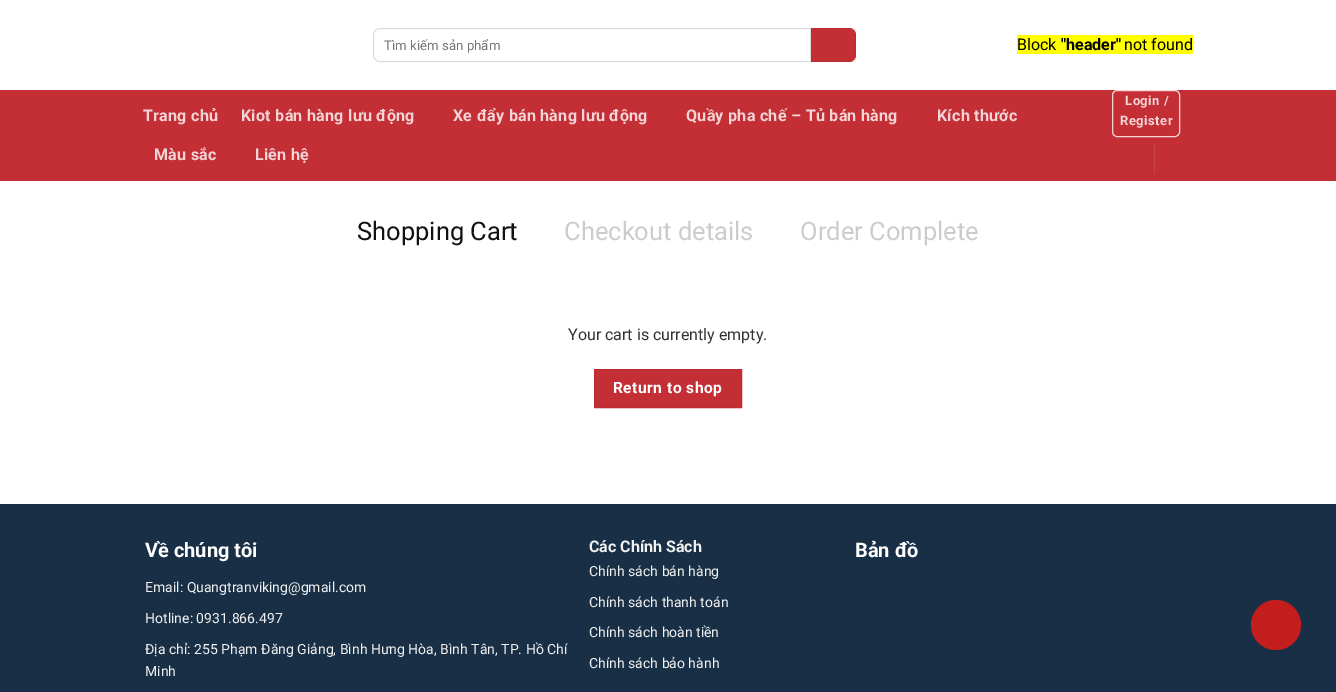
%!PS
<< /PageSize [1336 692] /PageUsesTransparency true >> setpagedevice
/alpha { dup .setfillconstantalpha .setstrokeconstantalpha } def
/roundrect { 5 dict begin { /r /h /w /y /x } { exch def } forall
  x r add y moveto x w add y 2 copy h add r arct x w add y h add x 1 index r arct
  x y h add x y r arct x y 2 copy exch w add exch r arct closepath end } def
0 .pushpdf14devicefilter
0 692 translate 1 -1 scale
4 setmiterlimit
1 setgray
0 0 1336 692 rectfill
0.867 setgray
newpath 380 28.5 moveto 810.5 28.5 lineto 810.5 61.5 lineto 380 61.5 lineto 376.5 61.5 373.5 58.5 373.5 55 curveto 373.5 35 lineto 373.5 31.5 376.5 28.5 380 28.5 curveto closepath stroke
/Roboto-Regular [13.25 0 0 -13.25 0 0] selectfont
0.459 setgray
384 50 moveto (Tìm kiếm sản phẩm) show
0.769 0.184 0.208 setrgbcolor
newpath 811 28 moveto 849 28 lineto 853 28 856 31 856 35 curveto 856 55 lineto 856 59 853 62 849 62 curveto 811 62 lineto closepath fill
0.05 alpha
0 setgray
811.5 28.5 44 33 rectstroke
1 alpha
1 1 0 setrgbcolor
1017 35 176 19 rectfill
/Roboto-Regular [16 0 0 -16 0 0] selectfont
0 setgray
1017 50 moveto (Block) show
/Roboto-Bold [16 0 0 -16 0 0] selectfont
1061 50 moveto ("header") show
/Roboto-Regular [16 0 0 -16 0 0] selectfont
1124 50 moveto (not found) show
0.769 0.184 0.208 setrgbcolor
0 90 1336 91 rectfill
/Roboto-Bold [16 0 0 -16 0 0] selectfont
0.953 0.835 0.843 setrgbcolor
143 121 moveto 0.3 0 (Trang chủ) ashow
241 121 moveto 0.3 0 (Kiot bán hàng lưu động) ashow
453 121 moveto 0.3 0 (Xe đẩy bán hàng lưu động) ashow
686 121 moveto 0.3 0 (Quầy pha chế – Tủ bán hàng) ashow
937 121 moveto 0.3 0 (Kích thước) ashow
154 160 moveto 0.3 0 (Màu sắc) ashow
255 160 moveto 0.3 0 (Liên hệ) ashow
1112.5 90.5 67 46 4.5 roundrect stroke
/Roboto-Bold [13 0 0 -13 0 0] selectfont
1125 105 moveto 0.5 0 (Login /) ashow
1120 125 moveto 0.5 0 (Register) ashow
0.792 0.267 0.286 setrgbcolor
1154 144 1 30 rectfill
/Roboto-Regular [25.5 0 0 -25.5 0 0] selectfont
0.067 setgray
357 240 moveto (Shopping Cart) show
0.8 setgray
564 240 moveto (Checkout details) show
800 240 moveto (Order Complete) show
/Roboto-Regular [16 0 0 -16 0 0] selectfont
0.2 setgray
568 340 moveto (Your cart is currently empty.) show
0.769 0.184 0.208 setrgbcolor
newpath 594.5 369.5 moveto 741.5 369.5 lineto 741.5 407.5 lineto 594.5 407.5 lineto closepath gsave fill grestore
0.729 0.176 0.196 setrgbcolor
stroke
/Roboto-Bold [15.5 0 0 -15.5 0 0] selectfont
1 setgray
613 393 moveto 0.5 0 (Return to shop) ashow
0.094 0.184 0.271 setrgbcolor
0 504 1336 188 rectfill
/Roboto-Bold [20 0 0 -20 0 0] selectfont
1 setgray
145 557 moveto (Về chúng tôi) show
/Roboto-Regular [14 0 0 -14 0 0] selectfont
0.945 setgray
145 592 moveto (Email: Quangtranviking@gmail.com) show
145 623 moveto (Hotline: 0931.866.497) show
145 654 moveto (Địa chỉ: 255 Phạm Đăng Giảng, Bình Hưng Hòa, Bình Tân, TP. Hồ Chí) show
145 676 moveto (Minh) show
/Roboto-Bold [16 0 0 -16 0 0] selectfont
589 552 moveto (Các Chính Sách) show
/Roboto-Regular [14 0 0 -14 0 0] selectfont
589 576 moveto (Chính sách bán hàng) show
589 607 moveto (Chính sách thanh toán) show
589 637 moveto (Chính sách hoàn tiền) show
589 668 moveto (Chính sách bảo hành) show
/Roboto-Bold [20 0 0 -20 0 0] selectfont
1 setgray
855 557 moveto (Bản đồ) show
0.765 0.114 0.114 setrgbcolor
newpath 1276 625 25 0 360 arc closepath fill
.poppdf14devicefilter showpage
